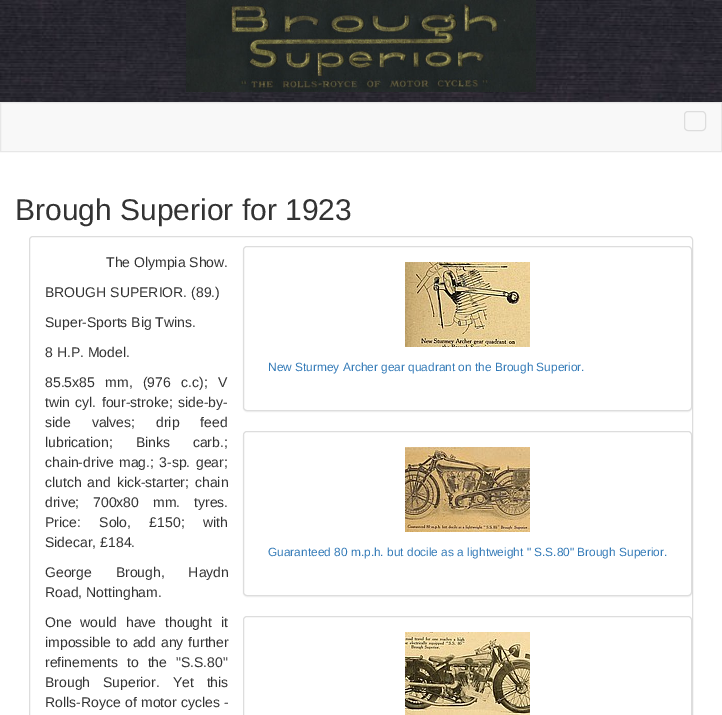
%!PS
<< /PageSize [722 715] /PageUsesTransparency true >> setpagedevice
/alpha { dup .setfillconstantalpha .setstrokeconstantalpha } def
/roundrect { 5 dict begin { /r /h /w /y /x } { exch def } forall
  x r add y moveto x w add y 2 copy h add r arct x w add y h add x 1 index r arct
  x y h add x y r arct x y 2 copy exch w add exch r arct closepath end } def
/shadow { 12 dict begin { /a /b /q /h /w /y /x } { exch def } forall gsave /was 0 def
  9 -2 -9 { dup b mul 4 div /e exch def 1 sub .425 mul 2.718 exch exp 1 add a .99 .min exch div /now exch def
    1 1 now sub 1 was sub div sub alpha /was now def
    w h .min e 2 mul add 0 gt { x e sub y e sub w e 2 mul add h e 2 mul add
      q e add b .6 mul add w h .min 2 div e add .min 0 .max roundrect fill } if } for grestore end } def
/picture { 5 dict begin { /h /w /y /x /name } { exch def } forall
  gsave x y translate w h scale
  w h 8 [w 0 0 h 0 0] name (r) file false 3 colorimage grestore end } def
0 .pushpdf14devicefilter
0 715 translate 1 -1 scale
4 setmiterlimit
1 setgray
0 0 722 715 rectfill
(img1.rgb) 0 0 722 102 picture
(img2.rgb) 186 0 350 92 picture
0.973 setgray
newpath 0.5 102.5 moveto 721.5 102.5 lineto 721.5 151.5 lineto 0.5 151.5 lineto closepath gsave fill grestore
0.906 setgray
stroke
0.867 setgray
684.5 111.5 21 19 3.5 roundrect stroke
/LiberationSans-Regular [30 0 0 -30 0 0] selectfont
0.2 setgray
15 220 moveto (Brough Superior for 1923) show
0.867 setgray
29.5 236.5 663 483 3.5 roundrect stroke
/LiberationSans-Regular [14 0 0 -14 0 0] selectfont
0.2 setgray
106 267 moveto (The Olympia Show.) show
45 297 moveto (BROUGH SUPERIOR. \(89.\)) show
45 327 moveto (Super-Sports Big Twins.) show
45 357 moveto (8 H.P. Model.) show
45 387 moveto 6.5 0 32 (85.5x85 mm, \(976 c.c\); V) widthshow
45 407 moveto 1.5 0 32 (twin cyl. four-stroke; side-by-) widthshow
45 427 moveto 17 0 32 (side valves; drip feed) widthshow
45 447 moveto 19 0 32 (lubrication; Binks carb.;) widthshow
45 467 moveto 1.5 0 32 (chain-drive mag.; 3-sp. gear;) widthshow
45 487 moveto 2 0 32 (clutch and kick-starter; chain) widthshow
45 507 moveto 10 0 32 (drive; 700x80 mm. tyres.) widthshow
45 527 moveto 14.5 0 32 (Price: Solo, £150; with) widthshow
45 547 moveto (Sidecar, £184.) show
45 577 moveto 20 0 32 (George Brough, Haydn) widthshow
45 597 moveto (Road, Nottingham.) show
45 627 moveto 5 0 32 (One would have thought it) widthshow
45 647 moveto 1 0 32 (impossible to add any further) widthshow
45 667 moveto 5 0 32 (refinements to the "S.S.80") widthshow
45 687 moveto 9 0 32 (Brough Superior. Yet this) widthshow
45 707 moveto 0.5 0 32 (Rolls-Royce of motor cycles -) widthshow
0 setgray
243 247 449 165 4 0.5 0.05 shadow
1 setgray
243.5 246.5 448 164 3.5 roundrect gsave fill grestore
0.867 setgray
stroke
(img3.rgb) 405 262 125 85 picture
/LiberationSans-Regular [11.9 0 0 -11.9 0 0] selectfont
0.2 0.478 0.718 setrgbcolor
268 371 moveto (New Sturmey Archer gear quadrant on the Brough Superior.) show
0 setgray
243 432 449 165 4 0.5 0.05 shadow
1 setgray
243.5 431.5 448 164 3.5 roundrect gsave fill grestore
0.867 setgray
stroke
(img4.rgb) 405 447 125 85 picture
0.2 0.478 0.718 setrgbcolor
268 556 moveto (Guaranteed 80 m.p.h. but docile as a lightweight " S.S.80" Brough Superior.) show
0.867 setgray
243.5 616.5 448 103 3.5 roundrect stroke
(img5.rgb) 405 632 125 83 picture
.poppdf14devicefilter showpage
